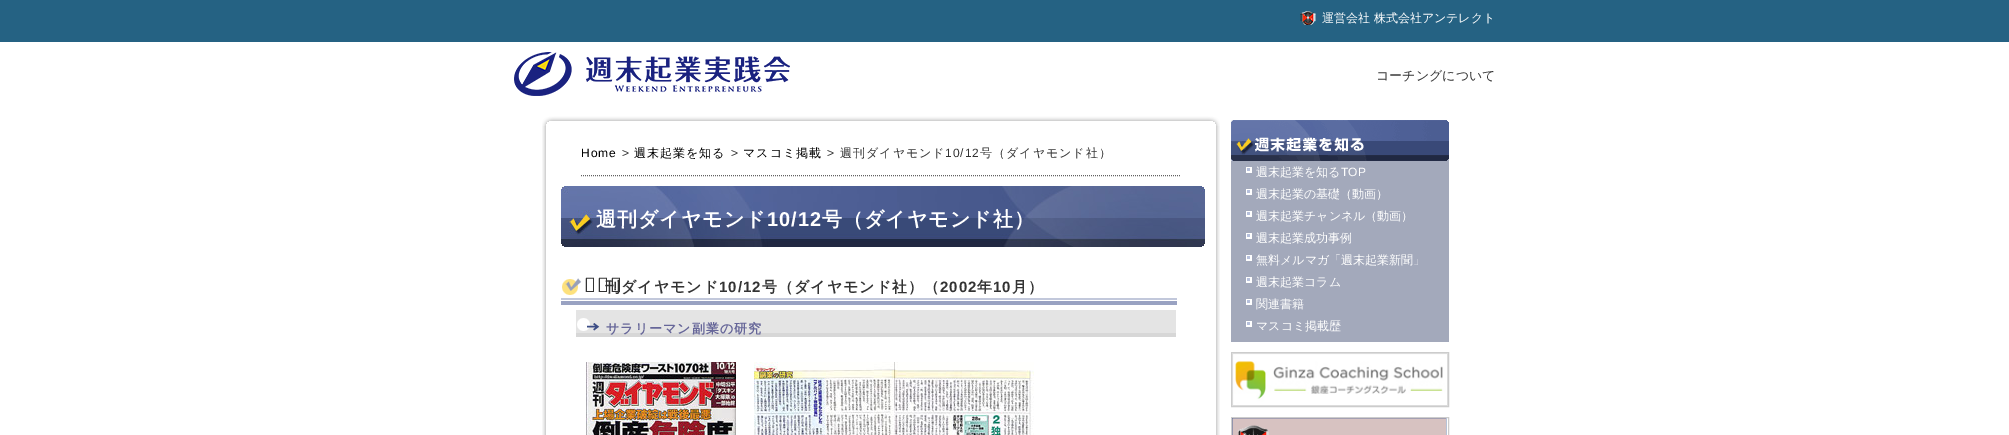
%!PS
<< /PageSize [2009 435] >> setpagedevice
/picture { 5 dict begin { /h /w /y /x /name } { exch def } forall
  gsave x y translate w h scale
  w h 8 [w 0 0 h 0 0] name (r) file false 3 colorimage grestore end } def
0 435 translate 1 -1 scale
4 setmiterlimit
1 setgray
0 0 2009 435 rectfill
0.145 0.384 0.514 setrgbcolor
0 0 2009 42 rectfill
(img1.rgb) 1300 11 16 14 picture
/WenQuanYiZenHei-Medium [12 0 0 -12 0 0] selectfont
1 setgray
1322 22 moveto (運営会社 株式会社アンテレクト) show
(img2.rgb) 514 52 276 44 picture
/WenQuanYiZenHei-Medium [13 0 0 -13 0 0] selectfont
0.2 setgray
1376 80 moveto (コーチングについて) show
(img3.rgb) 542 126 678 309 picture
(img4.rgb) 542 110 678 16 picture
0.38 setgray
[1 1] 0 setdash
newpath 581 175.5 moveto 1181 175.5 lineto stroke
/LiberationSans-Regular [12 0 0 -12 0 0] selectfont
0 setgray
581 157 moveto 1 0 (Home) ashow
0.2 setgray
622 157 moveto 1 0 (>) ashow
/WenQuanYiZenHei-Medium [12 0 0 -12 0 0] selectfont
0 setgray
634 157 moveto 1 0 (週末起業を知る) ashow
/LiberationSans-Regular [12 0 0 -12 0 0] selectfont
0.2 setgray
731 157 moveto 1 0 (>) ashow
/WenQuanYiZenHei-Medium [12 0 0 -12 0 0] selectfont
0 setgray
743 157 moveto 1 0 (マスコミ掲載) ashow
/LiberationSans-Regular [12 0 0 -12 0 0] selectfont
0.2 setgray
827 157 moveto 1 0 (>) ashow
/WenQuanYiZenHei-Medium [12 0 0 -12 0 0] selectfont
840 157 moveto 1 0 (週刊ダイヤモンド) ashow
/LiberationSans-Regular [12 0 0 -12 0 0] selectfont
945 157 moveto 1 0 (10/12) ashow
/WenQuanYiZenHei-Medium [12 0 0 -12 0 0] selectfont
980 157 moveto 1 0 (号（ダイヤモンド社）) ashow
(img5.rgb) 561 186 644 61 picture
/WenQuanYiZenHei-Bold [20 0 0 -20 0 0] selectfont
1 setgray
596 226 moveto 1 0 (週刊ダイヤモンド) ashow
/LiberationSans-Bold [20 0 0 -20 0 0] selectfont
767 226 moveto 1 0 (10/12) ashow
/WenQuanYiZenHei-Bold [20 0 0 -20 0 0] selectfont
822 226 moveto 1 0 (号（ダイヤモンド社）) ashow
(img6.rgb) 561 278 616 27 picture
/NotoSans-Thin [20 0 0 -20 0 0] selectfont
0.2 setgray
584 292 moveto 1 0 (週) ashow
/WenQuanYiZenHei-Bold [15 0 0 -15 0 0] selectfont
605 292 moveto 1 0 (刊ダイヤモンド) ashow
/LiberationSans-Bold [15 0 0 -15 0 0] selectfont
719 292 moveto 1 0 (10/12) ashow
/WenQuanYiZenHei-Bold [15 0 0 -15 0 0] selectfont
762 292 moveto 1 0 (号（ダイヤモンド社）（) ashow
/LiberationSans-Bold [15 0 0 -15 0 0] selectfont
940 292 moveto 1 0 (2002) ashow
/WenQuanYiZenHei-Bold [15 0 0 -15 0 0] selectfont
977 292 moveto 1 0 (年) ashow
/LiberationSans-Bold [15 0 0 -15 0 0] selectfont
993 292 moveto 1 0 (10) ashow
/WenQuanYiZenHei-Bold [15 0 0 -15 0 0] selectfont
1012 292 moveto 1 0 (月）) ashow
(img7.rgb) 576 310 600 27 picture
/WenQuanYiZenHei-Bold [13 0 0 -13 0 0] selectfont
0.4 0.4 0.6 setrgbcolor
606 333 moveto 1 0 (サラリーマン副業の研究) ashow
(img8.rgb) 586 362 150 73 picture
(img9.rgb) 754 362 280 73 picture
0.639 0.663 0.733 setrgbcolor
1231 159 218 183 rectfill
(img10.rgb) 1231 120 218 41 picture
(img11.rgb) 1246 167 6 6 picture
/WenQuanYiZenHei-Medium [12 0 0 -12 0 0] selectfont
1 setgray
1256 176 moveto (週末起業を知る) show
/LiberationSans-Regular [12 0 0 -12 0 0] selectfont
1341 176 moveto (TOP) show
(img11.rgb) 1246 189 6 6 picture
/WenQuanYiZenHei-Medium [12 0 0 -12 0 0] selectfont
1256 198 moveto (週末起業の基礎（動画）) show
(img11.rgb) 1246 211 6 6 picture
1256 220 moveto (週末起業チャンネル（動画）) show
(img11.rgb) 1246 233 6 6 picture
1256 242 moveto (週末起業成功事例) show
(img11.rgb) 1246 255 6 6 picture
1256 264 moveto (無料メルマガ「週末起業新聞」) show
(img11.rgb) 1246 277 6 6 picture
1256 286 moveto (週末起業コラム) show
(img11.rgb) 1246 299 6 6 picture
1256 308 moveto (関連書籍) show
(img11.rgb) 1246 321 6 6 picture
1256 330 moveto (マスコミ掲載歴) show
0.8 setgray
[] 0 setdash
1231.5 352.5 217 54 rectstroke
(img12.rgb) 1232 353 216 53 picture
1231.5 417.5 217 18 rectstroke
(img13.rgb) 1232 418 215 17 picture
showpage
